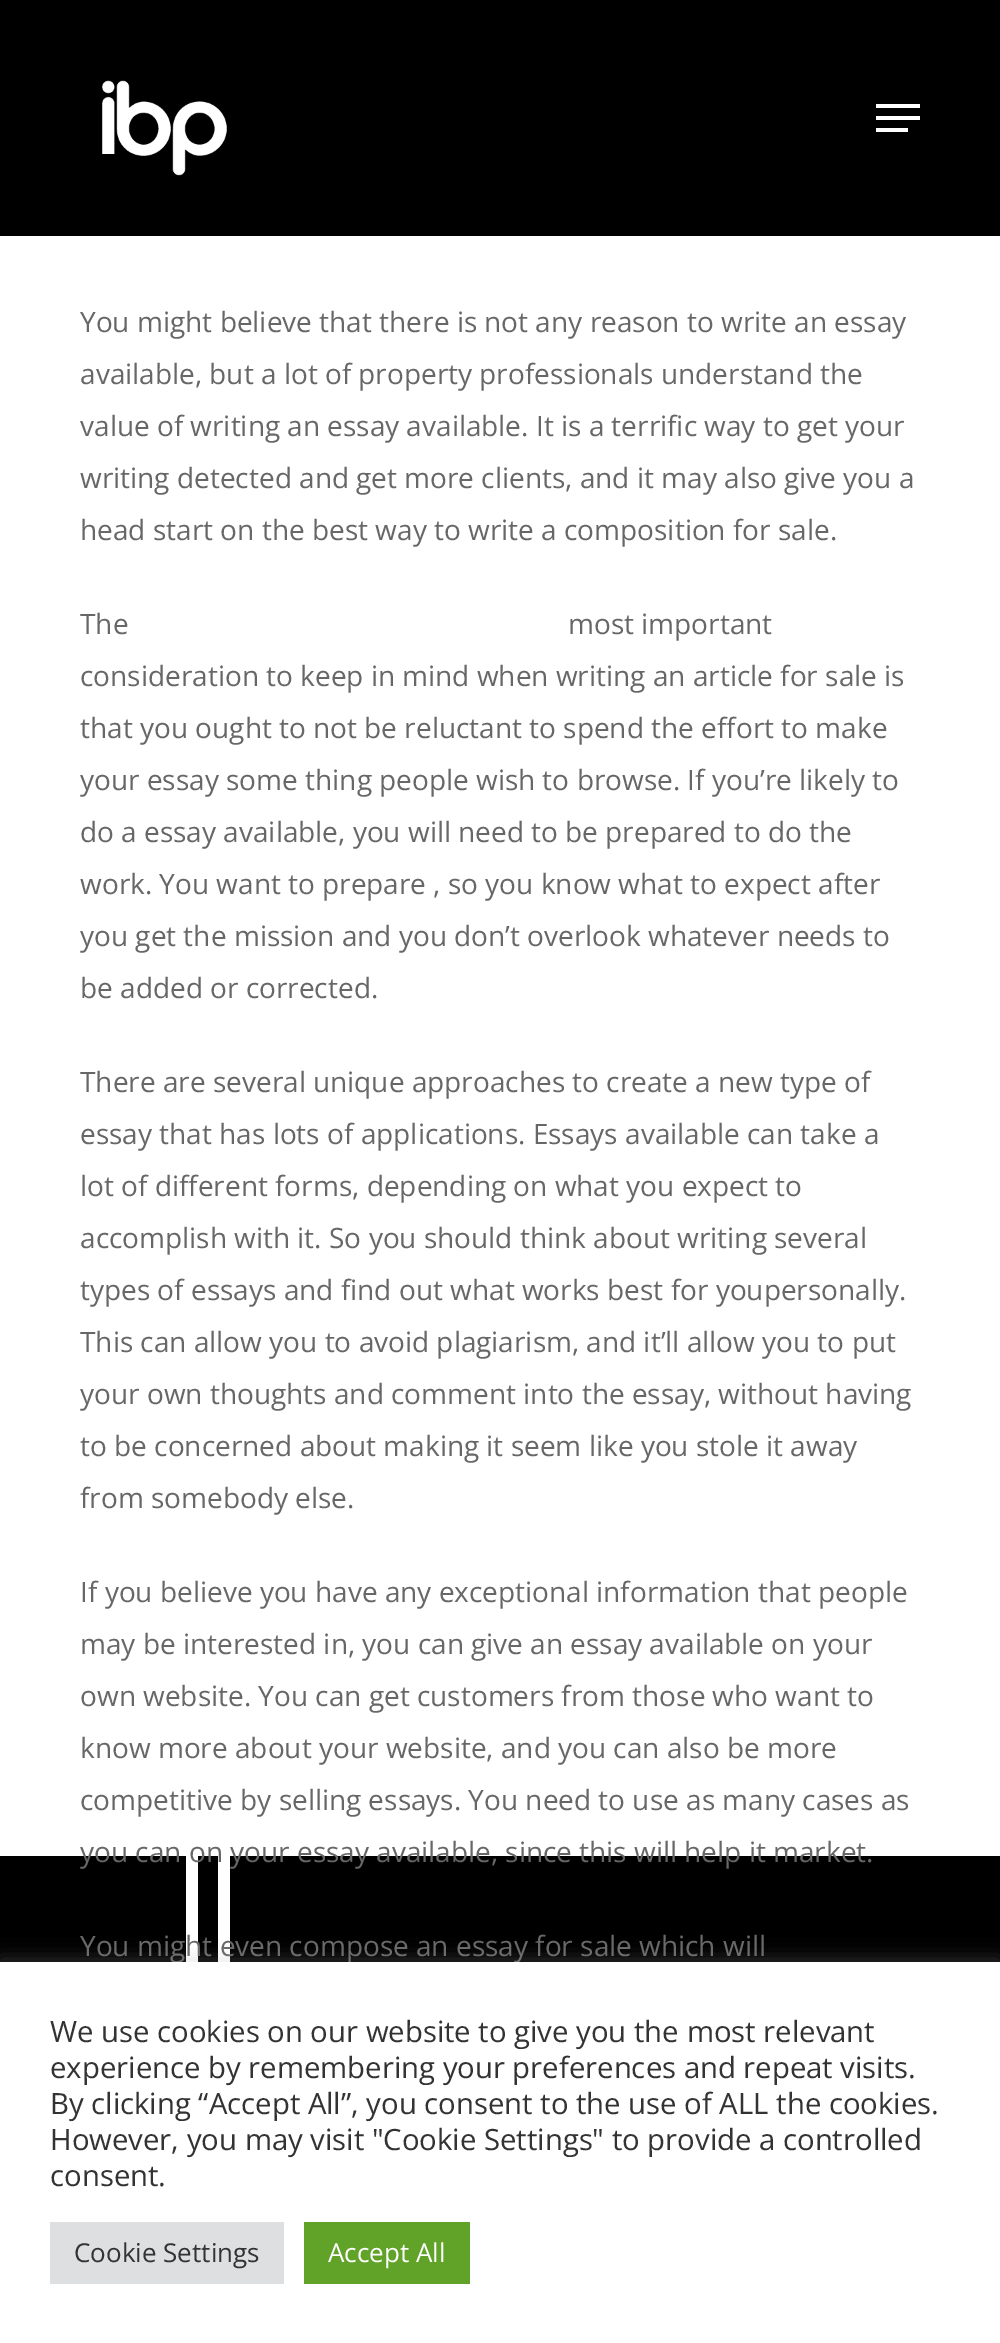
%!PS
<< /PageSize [1000 2343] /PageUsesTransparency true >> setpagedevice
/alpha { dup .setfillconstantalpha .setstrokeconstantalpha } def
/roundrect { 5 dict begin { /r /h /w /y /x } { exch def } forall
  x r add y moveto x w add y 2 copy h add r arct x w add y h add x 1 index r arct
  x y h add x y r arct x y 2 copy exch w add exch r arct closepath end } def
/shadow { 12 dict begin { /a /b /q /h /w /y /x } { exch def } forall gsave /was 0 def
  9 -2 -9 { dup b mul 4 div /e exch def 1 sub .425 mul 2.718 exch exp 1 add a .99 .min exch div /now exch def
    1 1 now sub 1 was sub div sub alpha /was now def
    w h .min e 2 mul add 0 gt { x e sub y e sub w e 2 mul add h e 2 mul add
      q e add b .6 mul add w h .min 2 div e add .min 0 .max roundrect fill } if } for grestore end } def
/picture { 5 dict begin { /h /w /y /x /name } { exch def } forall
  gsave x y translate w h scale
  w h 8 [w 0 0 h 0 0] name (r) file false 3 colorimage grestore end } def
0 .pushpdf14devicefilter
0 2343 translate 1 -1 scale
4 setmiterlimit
1 setgray
0 0 1000 2343 rectfill
0 setgray
0 0 1000 236 rectfill
(img1.rgb) 102 80 125 96 picture
1 setgray
876 104 44 4 rectfill
876 128 32 4 rectfill
876 116 44 4 rectfill
/OpenSans-Regular [28 0 0 -28 0 0] selectfont
0.404 setgray
80 332 moveto (You might believe that there is not any reason to write an essay) show
80 384 moveto (available, but a lot of property professionals understand the) show
80 436 moveto (value of writing an essay available. It is a terrific way to get your) show
80 488 moveto (writing detected and get more clients, and it may also give you a) show
80 540 moveto (head start on the best way to write a composition for sale.) show
80 634 moveto (The) show
568 634 moveto (most important) show
80 686 moveto (consideration to keep in mind when writing an article for sale is) show
80 738 moveto (that you ought to not be reluctant to spend the effort to make) show
80 790 moveto (your essay some thing people wish to browse. If you’re likely to) show
80 842 moveto (do a essay available, you will need to be prepared to do the) show
80 894 moveto (work. You want to prepare , so you know what to expect after) show
80 946 moveto (you get the mission and you don’t overlook whatever needs to) show
80 998 moveto (be added or corrected.) show
80 1092 moveto (There are several unique approaches to create a new type of) show
80 1144 moveto (essay that has lots of applications. Essays available can take a) show
80 1196 moveto (lot of different forms, depending on what you expect to) show
80 1248 moveto (accomplish with it. So you should think about writing several) show
80 1300 moveto (types of essays and find out what works best for youpersonally.) show
80 1352 moveto (This can allow you to avoid plagiarism, and it’ll allow you to put) show
80 1404 moveto (your own thoughts and comment into the essay, without having) show
80 1456 moveto (to be concerned about making it seem like you stole it away) show
80 1508 moveto (from somebody else.) show
80 1602 moveto (If you believe you have any exceptional information that people) show
80 1654 moveto (may be interested in, you can give an essay available on your) show
80 1706 moveto (own website. You can get customers from those who want to) show
80 1758 moveto (know more about your website, and you can also be more) show
80 1810 moveto (competitive by selling essays. You need to use as many cases as) show
0 setgray
0 1856 1000 106 rectfill
1 setgray
186 1856 12 106 rectfill
218 1856 12 106 rectfill
0.404 setgray
80 1862 moveto (you can on your essay available, since this will help it market.) show
80 1956 moveto (You might even compose an essay for sale which will) show
0.675 0.671 0.671 setrgbcolor
0 1960 1000 382 0 10 0.3 shadow
1 setgray
0 1962 1000 381 rectfill
/OpenSans-Regular [29.3 0 0 -29.3 0 0] selectfont
0.2 setgray
50 2042 moveto (We use cookies on our website to give you the most relevant) show
50 2078 moveto (experience by remembering your preferences and repeat visits.) show
50 2114 moveto (By clicking “Accept All”, you consent to the use of ALL the cookies.) show
50 2150 moveto (However, you may visit "Cookie Settings" to provide a controlled) show
50 2186 moveto (consent.) show
0.871 0.875 0.878 setrgbcolor
50 2222 234 62 rectfill
/OpenSans-Regular [26 0 0 -26 0 0] selectfont
0.2 setgray
74 2262 moveto (Cookie Settings) show
0.38 0.635 0.161 setrgbcolor
304 2222 166 62 rectfill
1 setgray
328 2262 moveto (Accept All) show
.poppdf14devicefilter showpage
